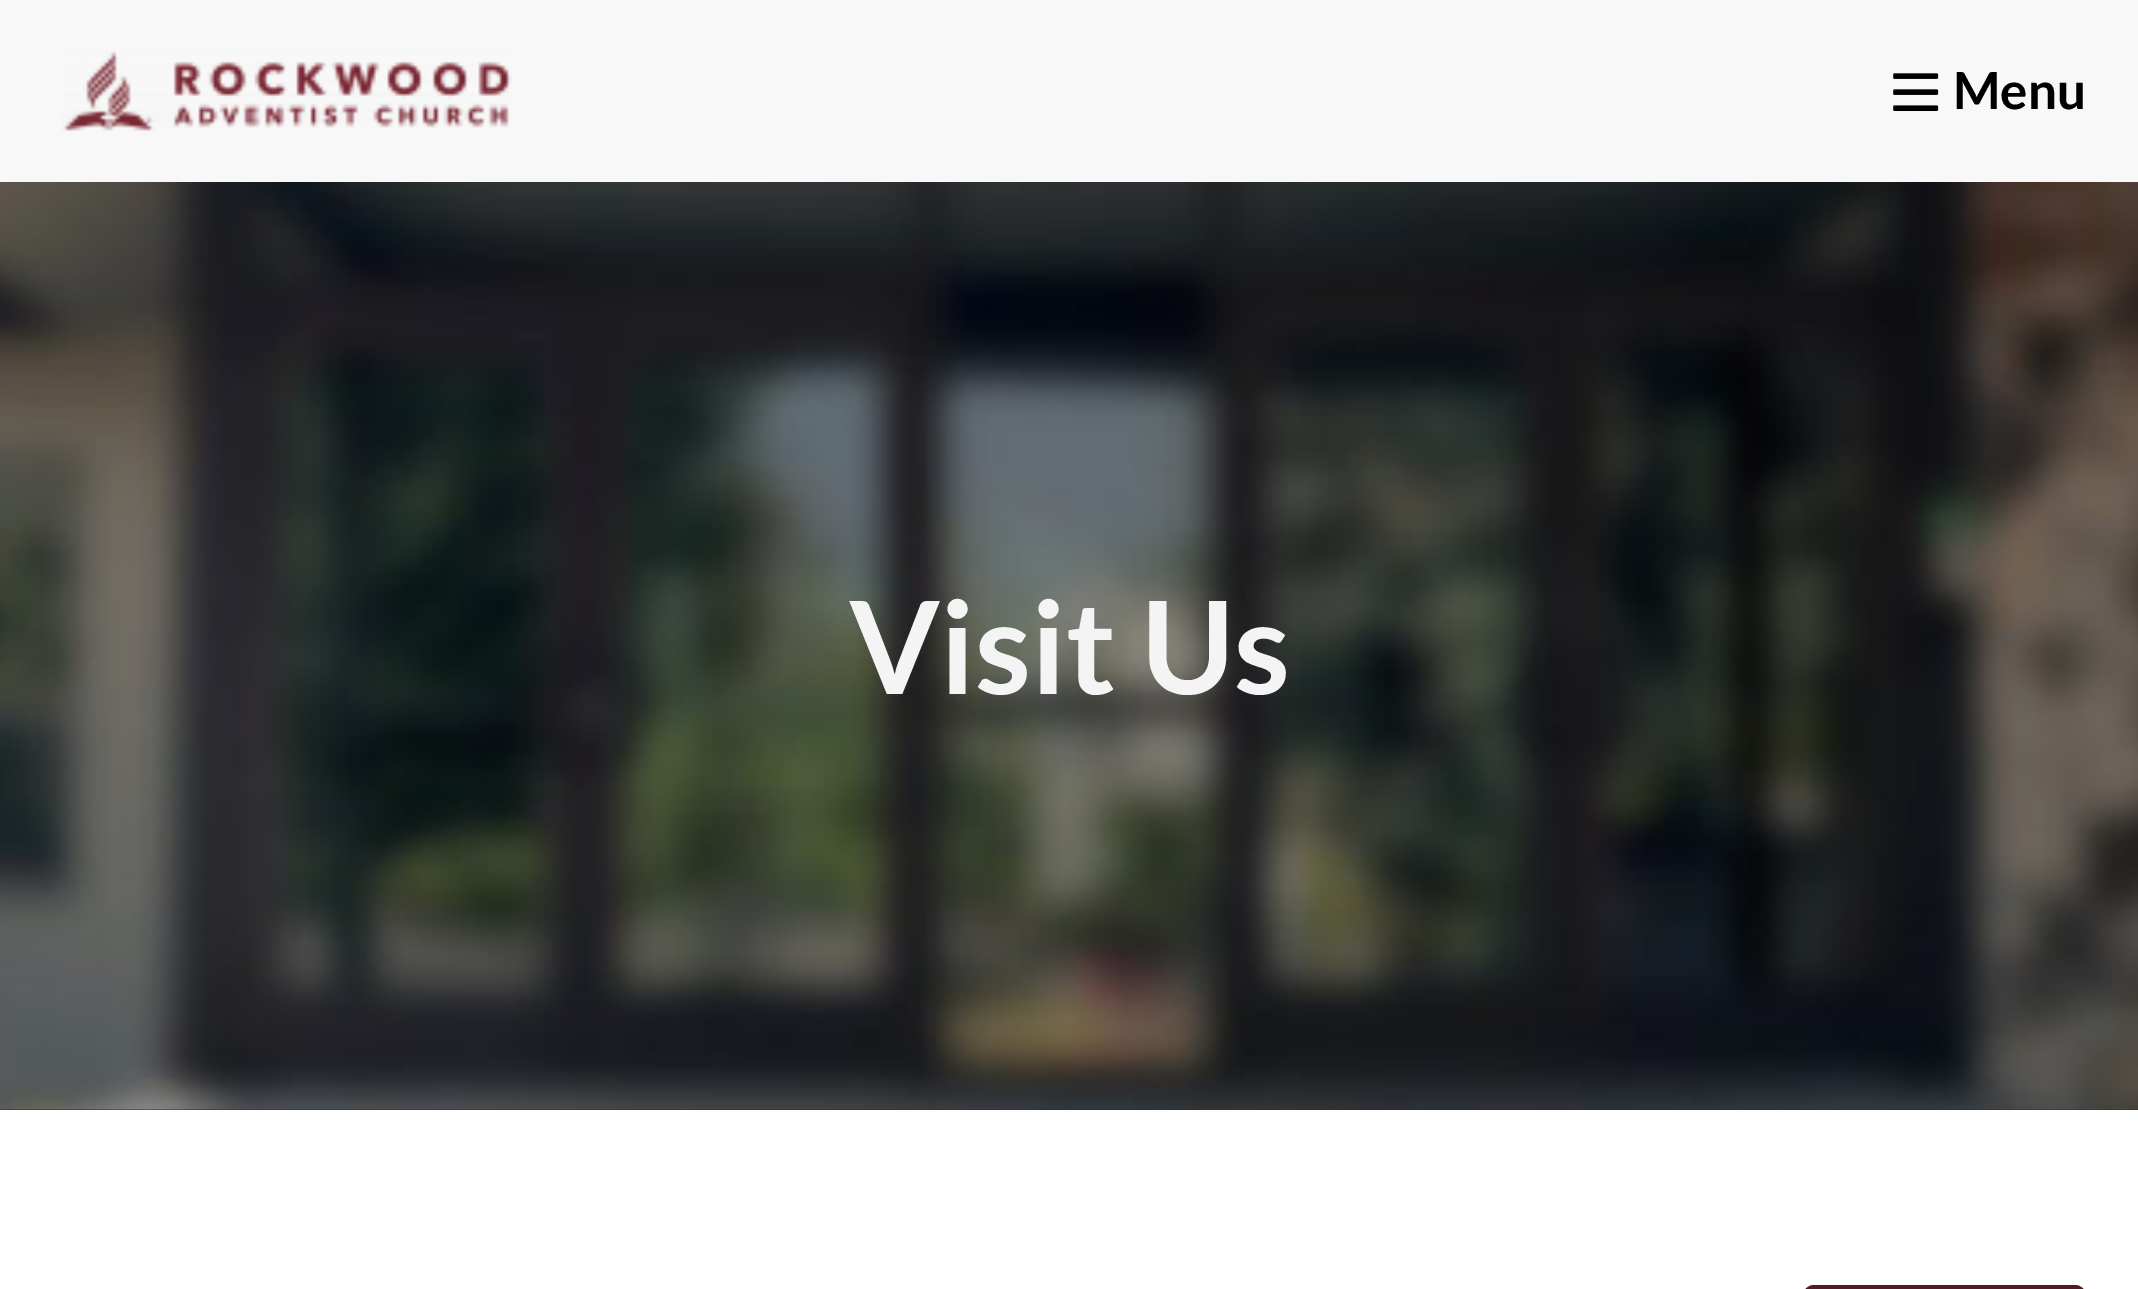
%!PS
<< /PageSize [2138 1289] >> setpagedevice
/roundrect { 5 dict begin { /r /h /w /y /x } { exch def } forall
  x r add y moveto x w add y 2 copy h add r arct x w add y h add x 1 index r arct
  x y h add x y r arct x y 2 copy exch w add exch r arct closepath end } def
/picture { 5 dict begin { /h /w /y /x /name } { exch def } forall
  gsave x y translate w h scale
  w h 8 [w 0 0 h 0 0] name (r) file false 3 colorimage grestore end } def
0 1289 translate 1 -1 scale
4 setmiterlimit
0.973 setgray
0 0 2138 1289 rectfill
(img1.rgb) 62 51 450 80 picture
(img2.rgb) 1893 73 46 38 picture
/Lato-Bold [51 0 0 -51 0 0] selectfont
0 setgray
1953 109 moveto (Menu) show
0.176 setgray
0 1109 2138 1 rectfill
(img3.rgb) 0 182 2138 928 picture
/Lato-Bold [128.5 0 0 -128.5 0 0] selectfont
0.957 setgray
849 694 moveto (Visit Us) show
1 setgray
0 1110 2138 179 rectfill
0.322 0.106 0.133 setrgbcolor
4 setlinewidth
1805 1287 279 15 9 roundrect stroke
showpage
